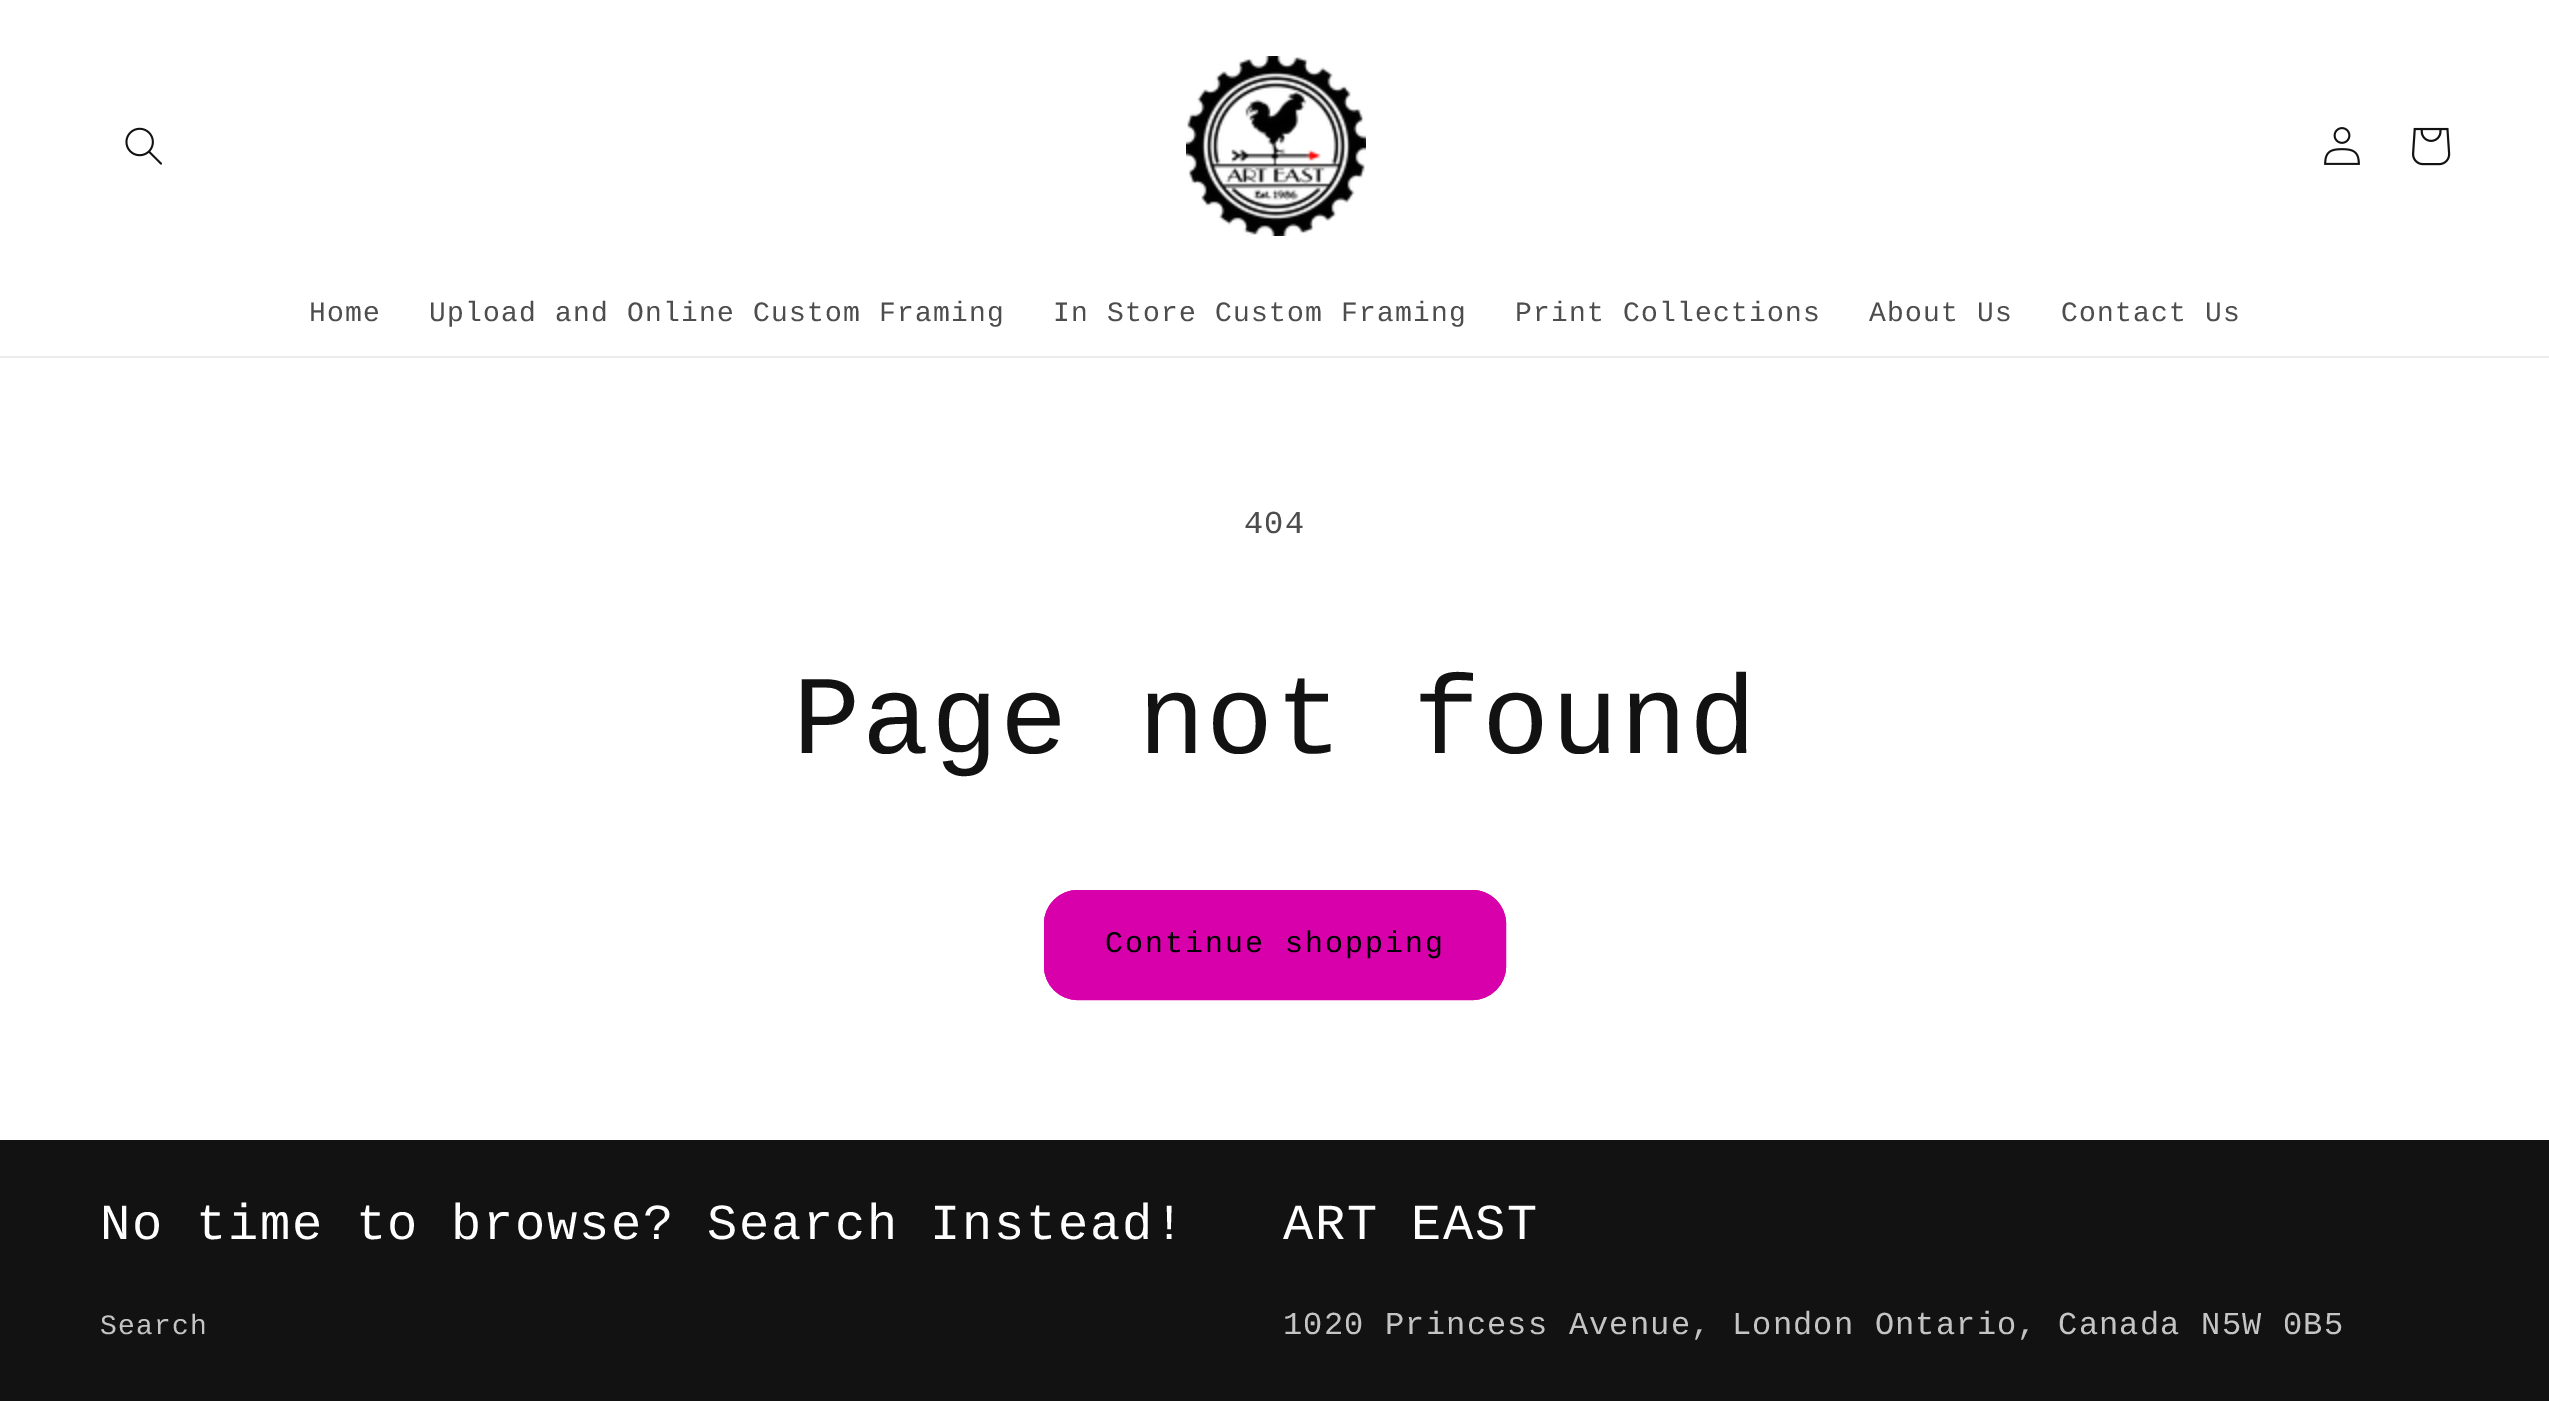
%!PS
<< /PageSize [2549 1401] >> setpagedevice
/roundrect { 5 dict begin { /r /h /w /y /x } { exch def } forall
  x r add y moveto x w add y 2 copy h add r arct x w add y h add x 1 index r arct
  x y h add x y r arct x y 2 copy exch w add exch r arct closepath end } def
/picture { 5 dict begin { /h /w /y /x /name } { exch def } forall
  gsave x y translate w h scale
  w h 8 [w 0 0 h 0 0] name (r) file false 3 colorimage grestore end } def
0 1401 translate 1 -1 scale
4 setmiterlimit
1 setgray
0 0 2549 1401 rectfill
0.925 setgray
0 356 2549 2 rectfill
(img1.rgb) 125 127 37 38 picture
(img2.rgb) 1186 56 180 180 picture
(img3.rgb) 2324 127 36 38 picture
(img4.rgb) 2412 127 39 39 picture
/LiberationMono-Regular [28 0 0 -28 0 0] selectfont
0.302 setgray
309 321 moveto 1.2 0 (Home) ashow
429 321 moveto 1.2 0 (Upload and Online Custom Framing) ashow
1053 321 moveto 1.2 0 (In Store Custom Framing) ashow
1515 321 moveto 1.2 0 (Print Collections) ashow
1869 321 moveto 1.2 0 (About Us) ashow
2061 321 moveto 1.2 0 (Contact Us) ashow
/LiberationMono-Regular [32 0 0 -32 0 0] selectfont
1244 533 moveto 1.2 0 (404) ashow
/LiberationMono-Regular [112 0 0 -112 0 0] selectfont
0.071 setgray
793 753 moveto 1.7 0 (Page not found) ashow
0.843 0 0.667 setrgbcolor
1044 890 462 110 34 roundrect fill
10 setlinewidth
1049 895 452 100 29 roundrect stroke
/LiberationMono-Regular [30 0 0 -30 0 0] selectfont
0 setgray
1105 952 moveto 2 0 (Continue shopping) ashow
0.071 setgray
0 1140 2549 261 rectfill
/LiberationMono-Regular [50.4 0 0 -50.4 0 0] selectfont
1 setgray
100 1239 moveto 1.7 0 (No time to browse? Search Instead!) ashow
/LiberationMono-Regular [28 0 0 -28 0 0] selectfont
0.769 setgray
100 1334 moveto 1.2 0 (Search) ashow
/LiberationMono-Regular [50.4 0 0 -50.4 0 0] selectfont
1 setgray
1283 1239 moveto 1.7 0 (ART EAST) ashow
/LiberationMono-Regular [32 0 0 -32 0 0] selectfont
0.769 setgray
1283 1334 moveto 1.2 0 (1020 Princess Avenue, London Ontario, Canada N5W 0B5) ashow
showpage
